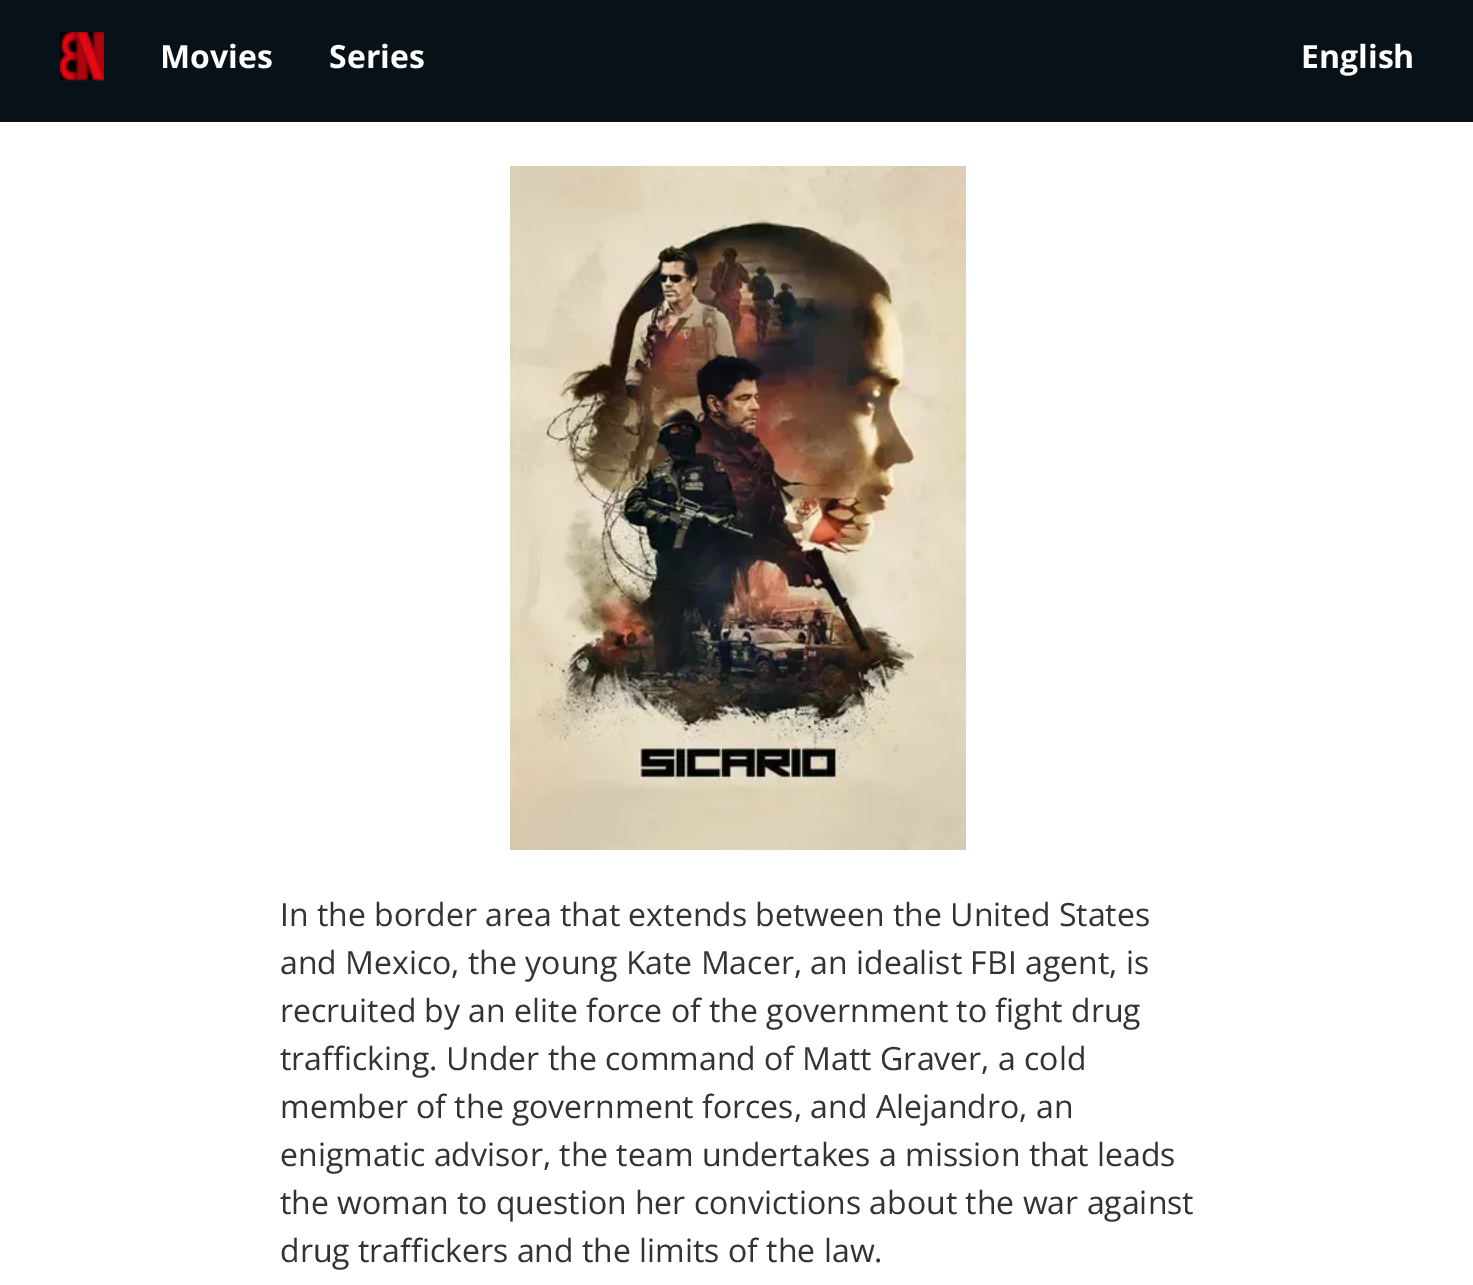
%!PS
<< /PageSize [1473 1285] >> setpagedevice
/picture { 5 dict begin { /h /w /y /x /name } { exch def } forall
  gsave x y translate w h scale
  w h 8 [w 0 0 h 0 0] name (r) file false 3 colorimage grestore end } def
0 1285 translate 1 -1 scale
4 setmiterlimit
1 setgray
0 0 1473 1285 rectfill
0.031 0.067 0.094 setrgbcolor
0 0 1473 122 rectfill
(img1.rgb) 60 32 44 49 picture
/OpenSans-Bold [32 0 0 -32 0 0] selectfont
1 setgray
160 68 moveto (Movies) show
329 68 moveto (Series) show
1301 68 moveto (English) show
(img2.rgb) 510 166 456 684 picture
/OpenSans-Regular [32 0 0 -32 0 0] selectfont
0.2 setgray
280 926 moveto (In the border area that extends between the United States) show
280 974 moveto (and Mexico, the young Kate Macer, an idealist FBI agent, is) show
280 1022 moveto (recruited by an elite force of the government to fight drug) show
280 1070 moveto (trafficking. Under the command of Matt Graver, a cold) show
280 1118 moveto (member of the government forces, and Alejandro, an) show
280 1166 moveto (enigmatic advisor, the team undertakes a mission that leads) show
280 1214 moveto (the woman to question her convictions about the war against) show
280 1262 moveto (drug traffickers and the limits of the law.) show
showpage
